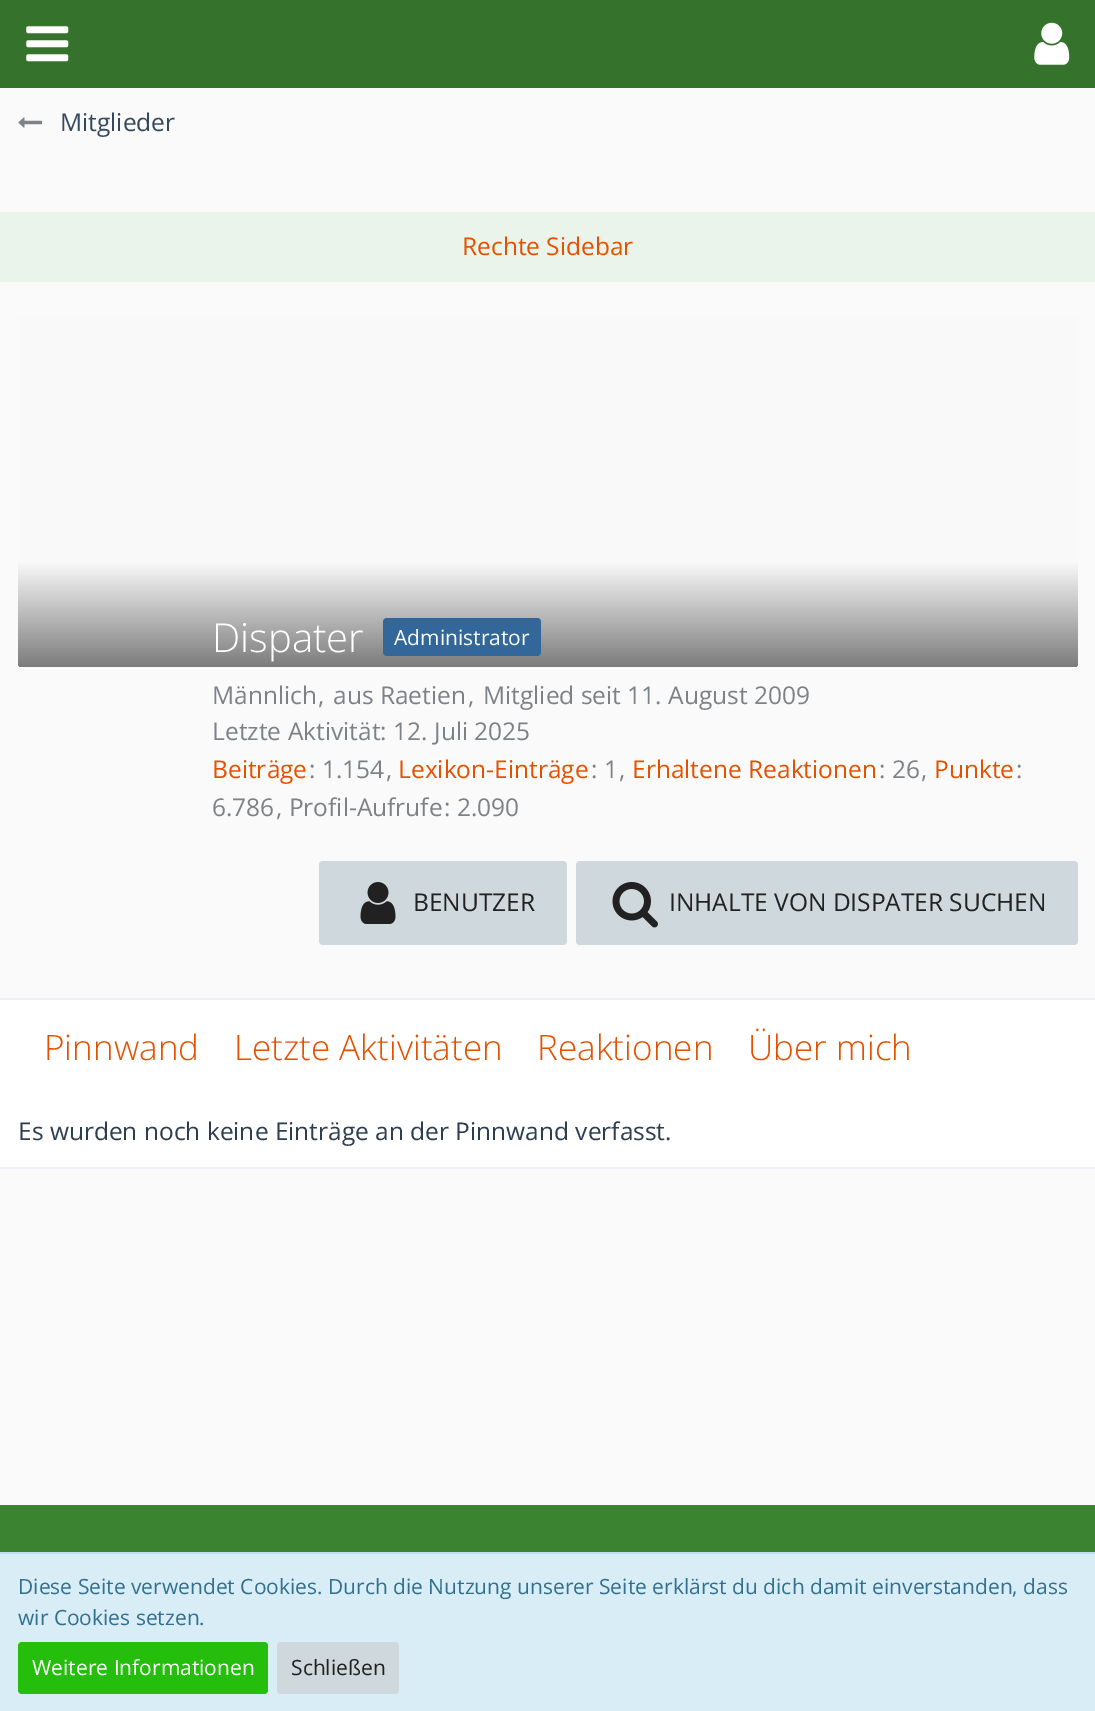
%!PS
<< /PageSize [1095 1711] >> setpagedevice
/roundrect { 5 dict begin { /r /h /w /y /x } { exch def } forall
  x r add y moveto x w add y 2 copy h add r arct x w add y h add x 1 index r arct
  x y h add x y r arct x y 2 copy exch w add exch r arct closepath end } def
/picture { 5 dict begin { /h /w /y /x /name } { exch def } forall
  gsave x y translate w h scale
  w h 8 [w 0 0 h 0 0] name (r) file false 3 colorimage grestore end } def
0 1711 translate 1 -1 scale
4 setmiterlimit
0.98 setgray
0 0 1095 1711 rectfill
0.208 0.447 0.169 setrgbcolor
0 0 1095 88 rectfill
(img1.rgb) 26 26 43 36 picture
(img2.rgb) 1034 22 36 43 picture
(img3.rgb) 18 117 24 11 picture
/OpenSans-Regular [24.5 0 0 -24.5 0 0] selectfont
0.204 0.286 0.369 setrgbcolor
60 131 moveto (Mitglieder) show
0.922 0.957 0.918 setrgbcolor
0 212 1095 70 rectfill
0.902 0.318 0 setrgbcolor
462 255 moveto (Rechte Sidebar) show
gsave newpath 18 317 moveto 1078 317 lineto 1078 662 lineto 1078 665 1076 667 1073 667 curveto 23 667 lineto 20 667 18 665 18 662 curveto closepath clip newpath
<< /ShadingType 2 /ColorSpace /DeviceRGB /Coords [548 317 548 667] /Extend [true true] /Function << /FunctionType 3 /Domain [0 1] /Functions [<< /FunctionType 2 /Domain [0 1] /C0 [0.976 0.976 0.976] /C1 [0.976 0.976 0.976] /N 1 >> << /FunctionType 2 /Domain [0 1] /C0 [0.976 0.976 0.976] /C1 [0.486 0.486 0.486] /N 1 >>] /Bounds [0.7] /Encode [0 1 0 1] >> >> shfill grestore
/OpenSans-Light [40 0 0 -40 0 0] selectfont
1 setgray
212 652 moveto (Dispater) show
0.2 0.4 0.6 setrgbcolor
383 618 158 38 4 roundrect fill
/OpenSans-Regular [21 0 0 -21 0 0] selectfont
1 setgray
394 645 moveto (Administrator) show
/OpenSans-Regular [24.5 0 0 -24.5 0 0] selectfont
0.49 0.51 0.529 setrgbcolor
212 704 moveto (Männlich) show
318 704 moveto (,) show
333 704 moveto (aus Raetien) show
468 704 moveto (,) show
483 704 moveto (Mitglied seit 11. August 2009) show
212 740 moveto (Letzte Aktivität: 12. Juli 2025) show
0.902 0.318 0 setrgbcolor
212 778 moveto (Beiträge) show
0.49 0.51 0.529 setrgbcolor
309 778 moveto (: 1.154) show
386 778 moveto (,) show
0.902 0.318 0 setrgbcolor
398 778 moveto (Lexikon-Einträge) show
0.49 0.51 0.529 setrgbcolor
591 778 moveto (: 1) show
619 778 moveto (,) show
0.902 0.318 0 setrgbcolor
632 778 moveto (Erhaltene Reaktionen) show
0.49 0.51 0.529 setrgbcolor
879 778 moveto (: 26) show
921 778 moveto (,) show
0.902 0.318 0 setrgbcolor
934 778 moveto (Punkte) show
0.49 0.51 0.529 setrgbcolor
1016 778 moveto (:) show
212 816 moveto (6.786) show
276 816 moveto (, Profil-Aufrufe) show
444 816 moveto (: 2.090) show
0.812 0.847 0.863 setrgbcolor
319 861 248 84 4 roundrect fill
(img4.rgb) 360 882 36 42 picture
0.129 setgray
413 911 moveto (BENUTZER) show
0.812 0.847 0.863 setrgbcolor
576 861 502 84 4 roundrect fill
(img5.rgb) 612 882 46 46 picture
0.129 setgray
669 911 moveto (INHALTE VON DISPATER SUCHEN) show
1 setgray
0 1000 1095 167 rectfill
0.925 0.945 0.969 setrgbcolor
0 998 1095 2 rectfill
0 1167 1095 2 rectfill
/OpenSans-Light [35 0 0 -35 0 0] selectfont
0.902 0.318 0 setrgbcolor
44 1060 moveto (Pinnwand) show
234 1060 moveto (Letzte Aktivitäten) show
537 1060 moveto (Reaktionen) show
748 1060 moveto (Über mich) show
/OpenSans-Regular [24.5 0 0 -24.5 0 0] selectfont
0.173 0.243 0.314 setrgbcolor
18 1140 moveto (Es wurden noch keine Einträge an der Pinnwand verfasst.) show
0.231 0.514 0.188 setrgbcolor
0 1505 1095 47 rectfill
0.851 0.929 0.969 setrgbcolor
0 1554 1095 157 rectfill
0.737 0.875 0.945 setrgbcolor
0 1552 1095 2 rectfill
/OpenSans-Regular [21 0 0 -21 0 0] selectfont
0.192 0.439 0.561 setrgbcolor
18 1594 moveto (Diese Seite verwendet Cookies. Durch die Nutzung unserer Seite erklärst du dich damit einverstanden, dass) show
18 1625 moveto (wir Cookies setzen.) show
0.145 0.745 0.051 setrgbcolor
18 1642 250 52 4 roundrect fill
1 setgray
32 1675 moveto (Weitere Informationen) show
0.812 0.847 0.863 setrgbcolor
277 1642 122 52 4 roundrect fill
0.129 setgray
291 1675 moveto (Schließen) show
showpage
